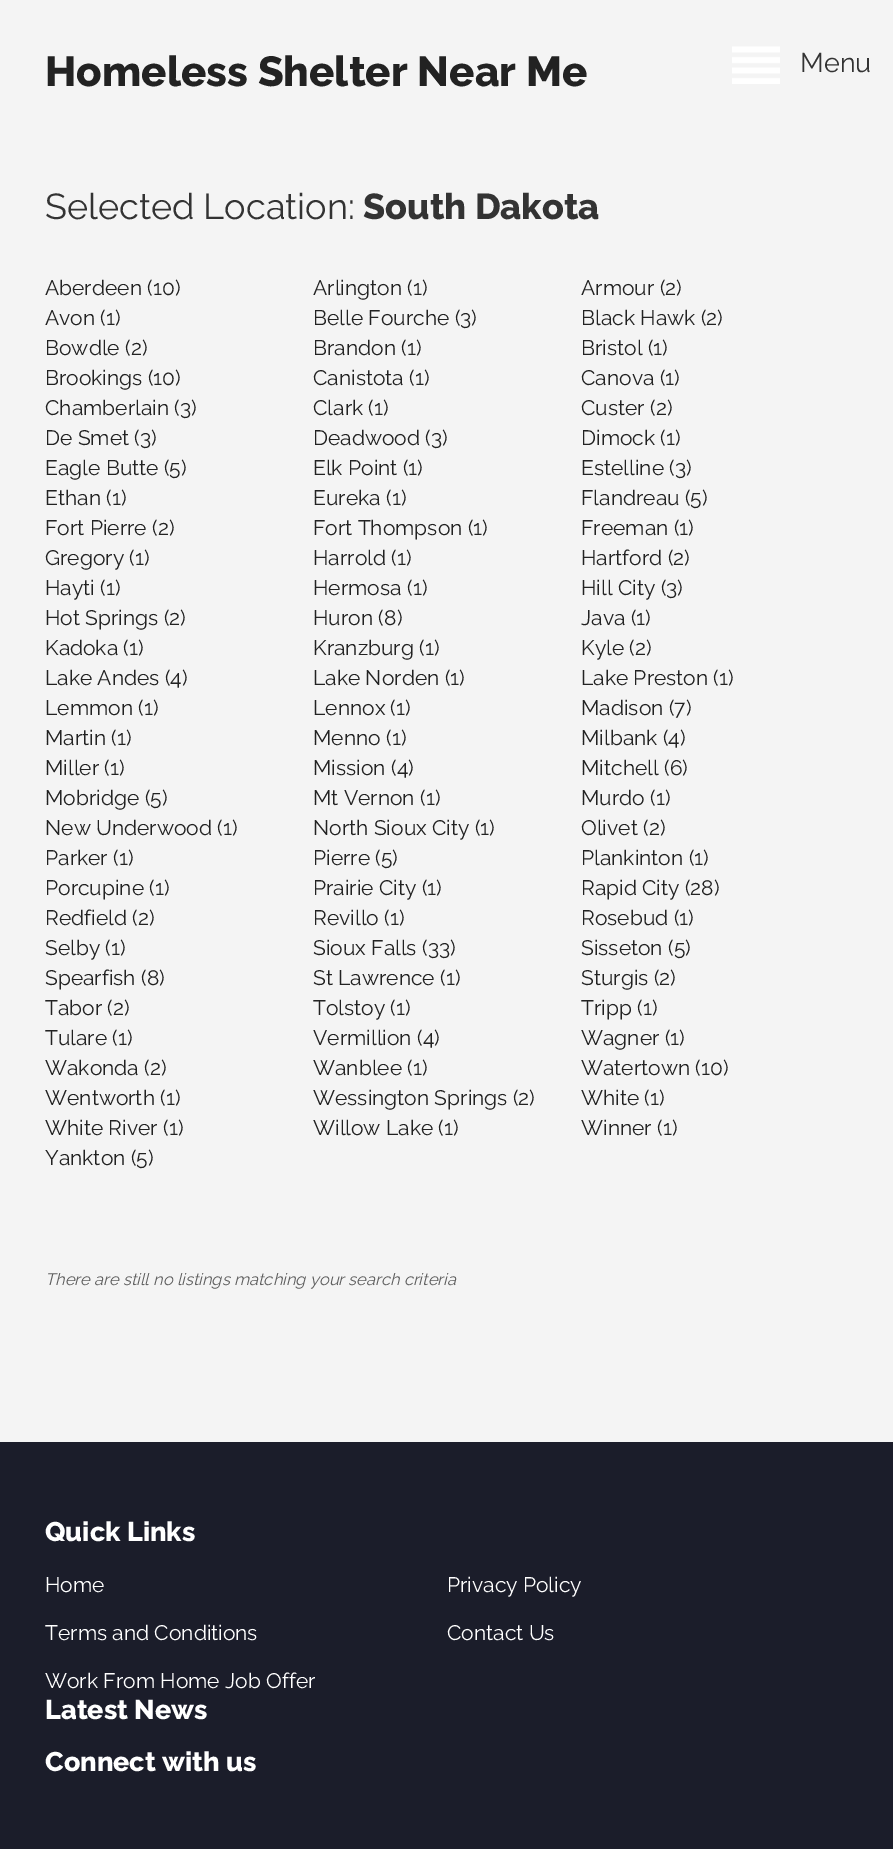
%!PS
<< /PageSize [893 1849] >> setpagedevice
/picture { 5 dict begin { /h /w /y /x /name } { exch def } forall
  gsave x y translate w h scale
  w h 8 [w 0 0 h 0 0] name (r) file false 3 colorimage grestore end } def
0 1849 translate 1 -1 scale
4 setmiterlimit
0.957 setgray
0 0 893 1849 rectfill
/Raleway-ExtraBold [42 0 0 -42 0 0] selectfont
0.133 setgray
45 86 moveto (Homeless Shelter Near Me) show
(img1.rgb) 732 46 48 38 picture
/Raleway-Regular [27 0 0 -27 0 0] selectfont
0.2 setgray
800 72 moveto (Menu) show
/Raleway-Regular [36 0 0 -36 0 0] selectfont
45 219 moveto (Selected Location:) show
/Raleway-ExtraBold [36 0 0 -36 0 0] selectfont
363 219 moveto (South Dakota) show
/Raleway-Regular [21 0 0 -21 0 0] selectfont
0.133 setgray
45 295 moveto (Aberdeen \(10\)) show
313 295 moveto (Arlington \(1\)) show
581 295 moveto (Armour \(2\)) show
45 325 moveto (Avon \(1\)) show
313 325 moveto (Belle Fourche \(3\)) show
581 325 moveto (Black Hawk \(2\)) show
45 355 moveto (Bowdle \(2\)) show
313 355 moveto (Brandon \(1\)) show
581 355 moveto (Bristol \(1\)) show
45 385 moveto (Brookings \(10\)) show
313 385 moveto (Canistota \(1\)) show
581 385 moveto (Canova \(1\)) show
45 415 moveto (Chamberlain \(3\)) show
313 415 moveto (Clark \(1\)) show
581 415 moveto (Custer \(2\)) show
45 445 moveto (De Smet \(3\)) show
313 445 moveto (Deadwood \(3\)) show
581 445 moveto (Dimock \(1\)) show
45 475 moveto (Eagle Butte \(5\)) show
313 475 moveto (Elk Point \(1\)) show
581 475 moveto (Estelline \(3\)) show
45 505 moveto (Ethan \(1\)) show
313 505 moveto (Eureka \(1\)) show
581 505 moveto (Flandreau \(5\)) show
45 535 moveto (Fort Pierre \(2\)) show
313 535 moveto (Fort Thompson \(1\)) show
581 535 moveto (Freeman \(1\)) show
45 565 moveto (Gregory \(1\)) show
313 565 moveto (Harrold \(1\)) show
581 565 moveto (Hartford \(2\)) show
45 595 moveto (Hayti \(1\)) show
313 595 moveto (Hermosa \(1\)) show
581 595 moveto (Hill City \(3\)) show
45 625 moveto (Hot Springs \(2\)) show
313 625 moveto (Huron \(8\)) show
581 625 moveto (Java \(1\)) show
45 655 moveto (Kadoka \(1\)) show
313 655 moveto (Kranzburg \(1\)) show
581 655 moveto (Kyle \(2\)) show
45 685 moveto (Lake Andes \(4\)) show
313 685 moveto (Lake Norden \(1\)) show
581 685 moveto (Lake Preston \(1\)) show
45 715 moveto (Lemmon \(1\)) show
313 715 moveto (Lennox \(1\)) show
581 715 moveto (Madison \(7\)) show
45 745 moveto (Martin \(1\)) show
313 745 moveto (Menno \(1\)) show
581 745 moveto (Milbank \(4\)) show
45 775 moveto (Miller \(1\)) show
313 775 moveto (Mission \(4\)) show
581 775 moveto (Mitchell \(6\)) show
45 805 moveto (Mobridge \(5\)) show
313 805 moveto (Mt Vernon \(1\)) show
581 805 moveto (Murdo \(1\)) show
45 835 moveto (New Underwood \(1\)) show
313 835 moveto (North Sioux City \(1\)) show
581 835 moveto (Olivet \(2\)) show
45 865 moveto (Parker \(1\)) show
313 865 moveto (Pierre \(5\)) show
581 865 moveto (Plankinton \(1\)) show
45 895 moveto (Porcupine \(1\)) show
313 895 moveto (Prairie City \(1\)) show
581 895 moveto (Rapid City \(28\)) show
45 925 moveto (Redfield \(2\)) show
313 925 moveto (Revillo \(1\)) show
581 925 moveto (Rosebud \(1\)) show
45 955 moveto (Selby \(1\)) show
313 955 moveto (Sioux Falls \(33\)) show
581 955 moveto (Sisseton \(5\)) show
45 985 moveto (Spearfish \(8\)) show
313 985 moveto (St Lawrence \(1\)) show
581 985 moveto (Sturgis \(2\)) show
45 1015 moveto (Tabor \(2\)) show
313 1015 moveto (Tolstoy \(1\)) show
581 1015 moveto (Tripp \(1\)) show
45 1045 moveto (Tulare \(1\)) show
313 1045 moveto (Vermillion \(4\)) show
581 1045 moveto (Wagner \(1\)) show
45 1075 moveto (Wakonda \(2\)) show
313 1075 moveto (Wanblee \(1\)) show
581 1075 moveto (Watertown \(10\)) show
45 1105 moveto (Wentworth \(1\)) show
313 1105 moveto (Wessington Springs \(2\)) show
581 1105 moveto (White \(1\)) show
45 1135 moveto (White River \(1\)) show
313 1135 moveto (Willow Lake \(1\)) show
581 1135 moveto (Winner \(1\)) show
45 1165 moveto (Yankton \(5\)) show
/Raleway-Italic [16.5 0 0 -16.5 0 0] selectfont
0.373 setgray
45 1285 moveto (There are still no listings matching your search criteria) show
0.106 0.114 0.165 setrgbcolor
0 1442 893 407 rectfill
/Raleway-ExtraBold [27 0 0 -27 0 0] selectfont
1 setgray
45 1541 moveto (Quick Links) show
/Raleway-Regular [21 0 0 -21 0 0] selectfont
45 1592 moveto (Home) show
447 1592 moveto (Privacy Policy) show
45 1640 moveto (Terms and Conditions) show
447 1640 moveto (Contact Us) show
45 1688 moveto (Work From Home Job Offer) show
/Raleway-ExtraBold [27 0 0 -27 0 0] selectfont
45 1719 moveto (Latest News) show
45 1771 moveto (Connect with us) show
showpage
